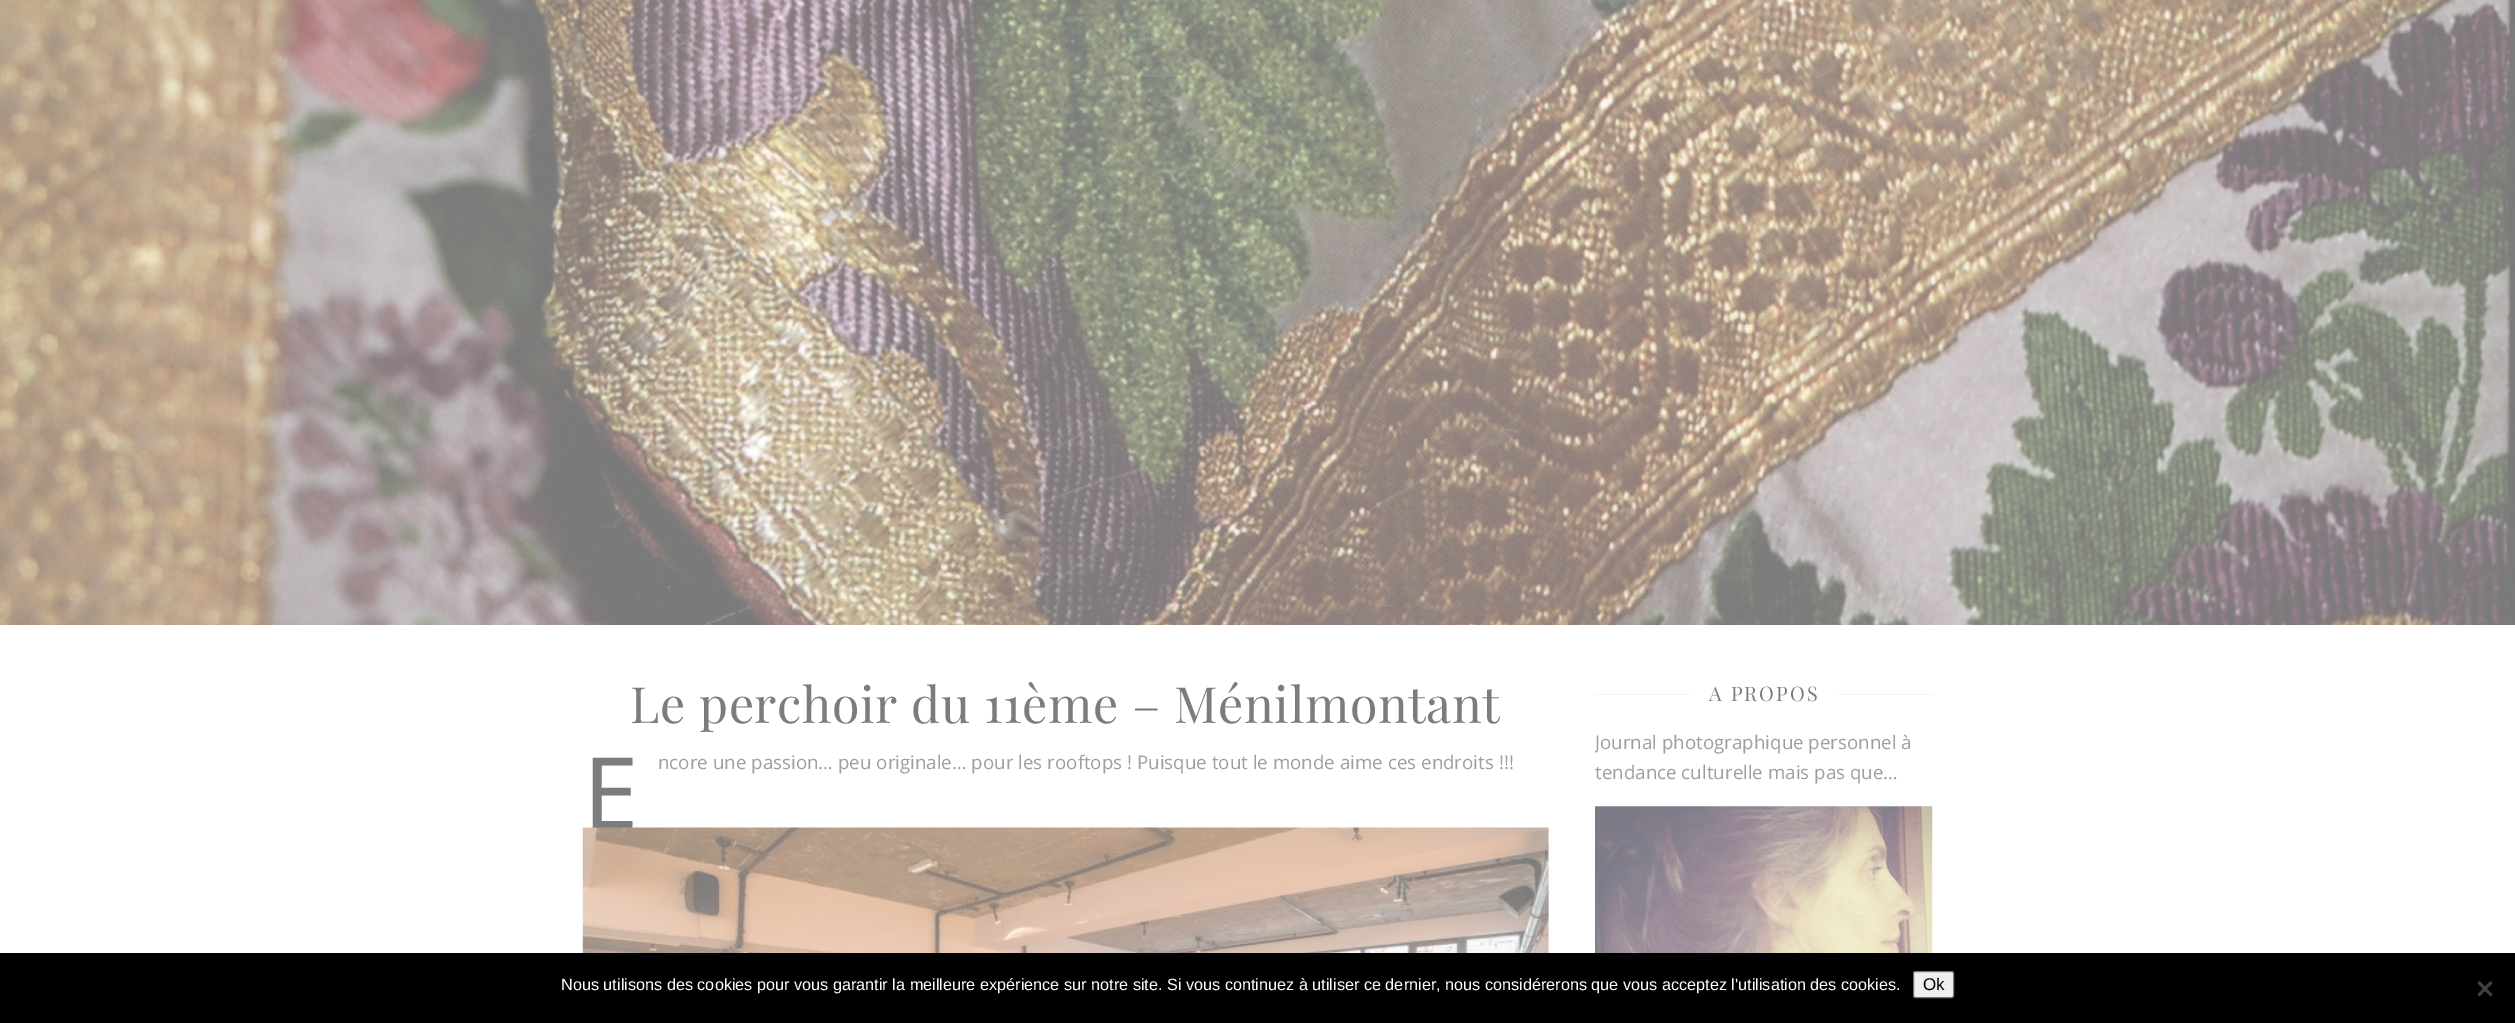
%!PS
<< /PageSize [2515 1023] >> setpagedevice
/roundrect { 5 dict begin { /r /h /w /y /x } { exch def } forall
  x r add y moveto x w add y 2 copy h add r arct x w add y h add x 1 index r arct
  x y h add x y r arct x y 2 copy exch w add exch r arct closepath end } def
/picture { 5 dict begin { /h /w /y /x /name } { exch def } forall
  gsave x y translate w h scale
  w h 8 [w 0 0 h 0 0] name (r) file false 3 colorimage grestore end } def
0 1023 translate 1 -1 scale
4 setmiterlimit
1 setgray
0 0 2515 1023 rectfill
(img1.rgb) 0 0 2515 625 picture
/PlayfairDisplay-Regular [50 0 0 -50 0 0] selectfont
0.486 setgray
630 723 moveto 0.6 0 (Le perchoir du 11ème – Ménilmontant) ashow
/NotoSans-Regular [100 0 0 -100 0 0] selectfont
583 829 moveto (E) show
/OpenSans-Regular [18.75 0 0 -18.75 0 0] selectfont
0.624 setgray
658 769 moveto (ncore une passion… peu originale… pour les rooftops ! Puisque tout le monde aime ces endroits !!!) show
(img2.rgb) 582 827 967 126 picture
0.953 setgray
1595 694 95 1 rectfill
/PlayfairDisplay-Regular [20 0 0 -20 0 0] selectfont
0.486 setgray
1709 701 moveto 2 0 (A PROPOS) ashow
0.953 setgray
1838 694 95 1 rectfill
gsave
1595 675 338 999 rectclip
/OpenSans-Regular [18.75 0 0 -18.75 0 0] selectfont
0.624 setgray
1595 749 moveto (Journal photographique personnel à) show
grestore
/OpenSans-Regular [18.75 0 0 -18.75 0 0] selectfont
0.624 setgray
1595 779 moveto (tendance culturelle mais pas que…) show
(img3.rgb) 1595 806 338 147 picture
0 setgray
0 953 2515 70 rectfill
/LiberationSans-Regular [16.25 0 0 -16.25 0 0] selectfont
1 setgray
561 990 moveto (Nous utilisons des cookies pour vous garantir la meilleure expérience sur notre site. Si vous continuez à utiliser ce dernier, nous considérerons que vous acceptez l'utilisation des cookies.) show
0.937 setgray
1913.5 971.5 40 26 2 roundrect gsave fill grestore
0.463 setgray
stroke
/LiberationSans-Regular [17 0 0 -17 0 0] selectfont
0 setgray
1923 990 moveto (Ok) show
0.251 setgray
newpath 2490.5 981 moveto 2492.5 983 lineto 2479.5 996.5 lineto 2477.5 994.5 lineto closepath fill
newpath 2477.5 983 moveto 2479.5 981 lineto 2492.5 994.5 lineto 2490.5 996.5 lineto closepath fill
showpage
